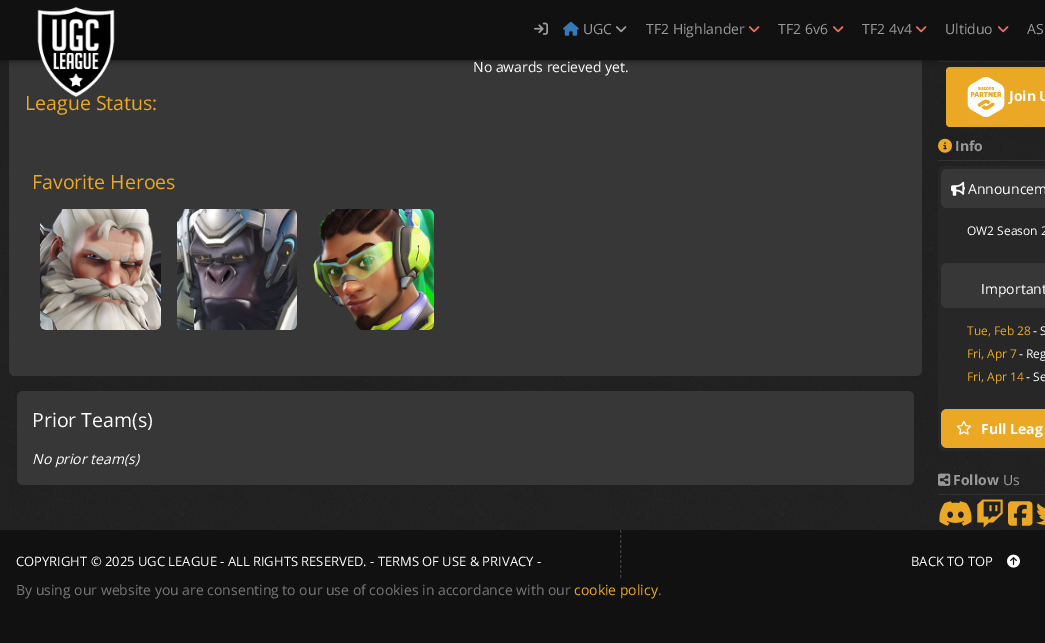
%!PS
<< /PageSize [1045 643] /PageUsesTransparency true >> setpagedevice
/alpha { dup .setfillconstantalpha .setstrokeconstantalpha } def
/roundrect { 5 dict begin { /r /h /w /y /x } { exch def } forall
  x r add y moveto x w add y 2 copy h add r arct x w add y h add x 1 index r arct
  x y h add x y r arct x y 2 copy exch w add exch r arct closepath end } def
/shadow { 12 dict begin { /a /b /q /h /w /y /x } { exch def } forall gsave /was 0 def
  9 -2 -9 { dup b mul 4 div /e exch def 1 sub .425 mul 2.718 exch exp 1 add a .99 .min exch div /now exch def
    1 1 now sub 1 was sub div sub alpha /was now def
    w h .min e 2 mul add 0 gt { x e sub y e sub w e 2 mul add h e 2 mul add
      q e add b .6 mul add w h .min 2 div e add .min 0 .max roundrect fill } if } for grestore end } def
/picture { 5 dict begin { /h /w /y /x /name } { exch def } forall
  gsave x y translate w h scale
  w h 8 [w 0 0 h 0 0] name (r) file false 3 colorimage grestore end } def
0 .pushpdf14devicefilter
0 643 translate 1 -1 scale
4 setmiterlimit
1 setgray
0 0 1045 643 rectfill
(img1.rgb) 0 60 1045 470 picture
0.216 setgray
9 -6 913 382 6 roundrect fill
0.2 setgray
938 61 107 1 rectfill
0.918 0.659 0.141 setrgbcolor
946 67 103 60 4 roundrect fill
0.067 setgray
0 0 1045 60 0 4 1 shadow
0 0 1045 60 rectfill
/OpenSans-Regular [19.5 0 0 -19.5 0 0] selectfont
0.918 0.659 0.141 setrgbcolor
25 110 moveto (League Status:) show
(img2.rgb) 37 6 78 91 picture
(img3.rgb) 534 22 14 13 picture
(img4.rgb) 563 21 16 15 picture
/OpenSans-Regular [14 0 0 -14 0 0] selectfont
0.6 setgray
583 34 moveto (UGC) show
(img5.rgb) 616 26 11 7 picture
646 34 moveto (TF2 Highlander) show
(img6.rgb) 749 26 11 7 picture
778 34 moveto (TF2 6v6) show
(img6.rgb) 833 26 11 7 picture
862 34 moveto (TF2 4v4) show
(img6.rgb) 916 26 11 7 picture
945 34 moveto (Ultiduo) show
(img6.rgb) 998 26 11 7 picture
1027 34 moveto (AS) show
1 setgray
473 72 moveto (No awards recieved yet.) show
/OpenSans-Regular [19.5 0 0 -19.5 0 0] selectfont
0.918 0.659 0.141 setrgbcolor
32 189 moveto (Favorite Heroes) show
(img7.rgb) 40 209 121 121 picture
(img8.rgb) 177 209 120 121 picture
(img9.rgb) 313 209 121 121 picture
0.216 setgray
17 391 897 94 6 roundrect fill
1 setgray
32 427 moveto (Prior Team\(s\)) show
/OpenSans-Italic [14 0 0 -14 0 0] selectfont
32 464 moveto (No prior team\(s\)) show
(img10.rgb) 967 77 38 40 picture
/OpenSans-Bold [14 0 0 -14 0 0] selectfont
1009 101 moveto (Join U) show
0.2 setgray
938 160 107 1 rectfill
(img11.rgb) 938 138 14 15 picture
0.6 setgray
955 151 moveto (Info) show
0.153 setgray
938 166 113 285 6 roundrect fill
0.216 setgray
941 169 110 39 6 roundrect fill
(img12.rgb) 951 181 14 15 picture
/OpenSans-Regular [14 0 0 -14 0 0] selectfont
1 setgray
968 194 moveto (Announcem) show
/OpenSans-Regular [12 0 0 -12 0 0] selectfont
967 235 moveto (OW2 Season 2) show
0.216 setgray
941 263 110 45 6 roundrect fill
/OpenSans-Regular [14 0 0 -14 0 0] selectfont
1 setgray
981 294 moveto (Important) show
/OpenSans-Regular [12 0 0 -12 0 0] selectfont
0.918 0.659 0.141 setrgbcolor
967 335 moveto (Tue, Feb 28) show
1 setgray
1033 335 moveto (- S) show
0.918 0.659 0.141 setrgbcolor
967 358 moveto (Fri, Apr 7) show
1 setgray
1019 358 moveto (- Reg) show
0.918 0.659 0.141 setrgbcolor
967 381 moveto (Fri, Apr 14) show
1 setgray
1026 381 moveto (- Se) show
0.918 0.659 0.141 setrgbcolor
941 409 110 39 6 roundrect fill
(img13.rgb) 956 420 16 15 picture
/OpenSans-Bold [14 0 0 -14 0 0] selectfont
1 setgray
981 434 moveto (Full Leag) show
0.2 setgray
938 494 107 1 rectfill
(img14.rgb) 938 473 13 13 picture
0.6 setgray
953 485 moveto (Follow) show
/OpenSans-Regular [14 0 0 -14 0 0] selectfont
1003 485 moveto (Us) show
(img15.rgb) 939 501 33 25 picture
(img16.rgb) 977 499 26 29 picture
(img17.rgb) 1008 501 25 25 picture
(img18.rgb) 1036 503 9 22 picture
0.067 setgray
0 530 1045 50 rectfill
/OpenSans-Regular [13 0 0 -13 0 0] selectfont
1 setgray
16 566 moveto (COPYRIGHT © 2025 UGC LEAGUE - ALL RIGHTS RESERVED. - TERMS OF USE & PRIVACY -) show
0.251 0.243 0.267 setrgbcolor
[3 2] 0 setdash
newpath 620.5 530 moveto 620.5 593 lineto stroke
1 setgray
911 566 moveto (BACK TO TOP) show
(img19.rgb) 1007 554 13 14 picture
0.067 setgray
0 580 1045 63 rectfill
/OpenSans-Regular [14 0 0 -14 0 0] selectfont
0.467 setgray
16 595 moveto (By using our website you are consenting to our use of cookies in accordance with our) show
0.918 0.659 0.141 setrgbcolor
574 595 moveto (cookie policy) show
0.467 setgray
658 595 moveto (.) show
.poppdf14devicefilter showpage
